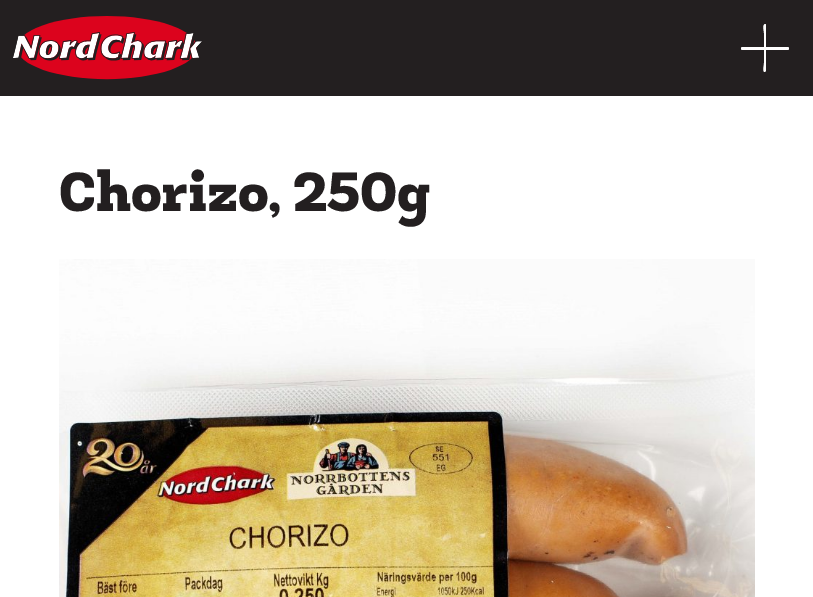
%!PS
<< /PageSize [813 597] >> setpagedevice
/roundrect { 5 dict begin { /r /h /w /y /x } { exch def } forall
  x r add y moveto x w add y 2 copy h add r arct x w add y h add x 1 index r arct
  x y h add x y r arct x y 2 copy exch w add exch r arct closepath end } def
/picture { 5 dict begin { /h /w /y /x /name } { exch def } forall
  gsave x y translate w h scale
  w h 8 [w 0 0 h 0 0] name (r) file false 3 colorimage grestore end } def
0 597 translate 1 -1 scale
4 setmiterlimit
1 setgray
0 0 813 597 rectfill
0.137 0.122 0.125 setrgbcolor
0 0 813 96 rectfill
(img1.rgb) 13 16 189 64 picture
1 setgray
741 47 48 3 1.5 roundrect fill
newpath 766 26 moveto 766 71 lineto 765 72 lineto 762 72 764 66 764 63 curveto 764 33 lineto 764 31 762 25 765 24 curveto 766 24 766 25 766 26 curveto closepath fill
/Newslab-Black [56 0 0 -56 0 0] selectfont
0.137 0.122 0.125 setrgbcolor
59 211 moveto (Chorizo, 250g) show
(img2.rgb) 59 259 696 338 picture
showpage
